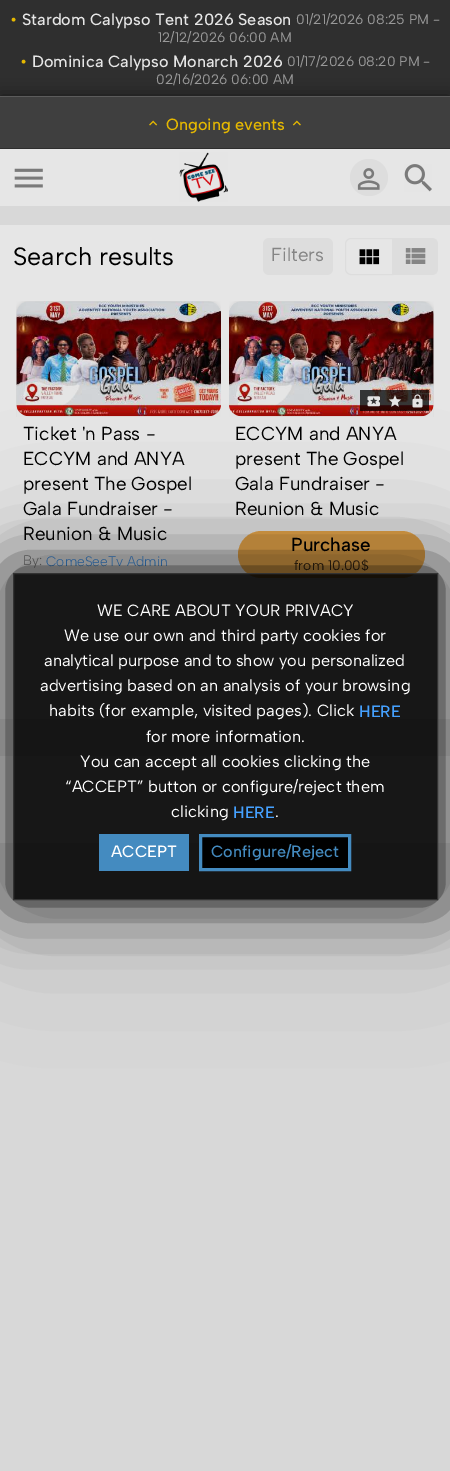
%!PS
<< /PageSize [450 1471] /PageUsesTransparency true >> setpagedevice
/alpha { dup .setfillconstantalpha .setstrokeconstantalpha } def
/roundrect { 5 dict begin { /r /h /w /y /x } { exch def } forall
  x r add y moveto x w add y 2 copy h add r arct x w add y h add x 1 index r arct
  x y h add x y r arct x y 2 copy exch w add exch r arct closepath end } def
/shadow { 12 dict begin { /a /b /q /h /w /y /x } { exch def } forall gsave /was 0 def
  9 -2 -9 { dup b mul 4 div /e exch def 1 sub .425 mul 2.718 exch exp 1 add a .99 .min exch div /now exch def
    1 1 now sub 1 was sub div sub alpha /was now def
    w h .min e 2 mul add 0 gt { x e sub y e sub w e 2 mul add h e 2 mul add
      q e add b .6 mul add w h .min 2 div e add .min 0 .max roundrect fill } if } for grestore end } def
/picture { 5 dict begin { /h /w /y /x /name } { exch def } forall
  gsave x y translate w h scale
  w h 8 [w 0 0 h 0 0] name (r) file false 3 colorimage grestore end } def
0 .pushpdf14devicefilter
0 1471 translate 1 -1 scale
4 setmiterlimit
0.847 setgray
0 0 450 1471 rectfill
0.184 setgray
0 0 450 96 rectfill
/AlbertSans-Regular [16.25 0 0 -16.25 0 0] selectfont
0.902 0.722 0 setrgbcolor
10 25 moveto (•) show
/AlbertSans-Medium [16.25 0 0 -16.25 0 0] selectfont
0.902 setgray
22 25 moveto (Stardom Calypso Tent 2026 Season) show
/AlbertSans-Regular [13.75 0 0 -13.75 0 0] selectfont
0.6 setgray
296 24 moveto (01/21/2026 08:25 PM -) show
158 42 moveto (12/12/2026 06:00 AM) show
/AlbertSans-Regular [16.25 0 0 -16.25 0 0] selectfont
0.902 0.722 0 setrgbcolor
20 67 moveto (•) show
/AlbertSans-Medium [16.25 0 0 -16.25 0 0] selectfont
0.902 setgray
32 67 moveto (Dominica Calypso Monarch 2026) show
/AlbertSans-Regular [13.75 0 0 -13.75 0 0] selectfont
0.6 setgray
287 66 moveto (01/17/2026 08:20 PM -) show
0 setgray
0 96 450 53 0 8 0.5 shadow
0.6 setgray
156 84 moveto (02/16/2026 06:00 AM) show
0.247 setgray
0 97 450 51 rectfill
0.357 setgray
0 96 450 1 rectfill
0.18 setgray
0 148 450 1 rectfill
(img1.rgb) 149 120 9 6 picture
/AlbertSans-Medium [16.25 0 0 -16.25 0 0] selectfont
0.902 0.722 0 setrgbcolor
166 130 moveto (Ongoing events) show
(img2.rgb) 292 120 9 6 picture
0.902 setgray
0 149 450 57 rectfill
(img3.rgb) 14 168 29 20 picture
(img4.rgb) 179 152 49 50 picture
0.867 setgray
350 159 38 37 18.5 roundrect fill
(img5.rgb) 357 168 23 22 picture
(img6.rgb) 404 164 28 28 picture
0.902 setgray
0 225 450 494 rectfill
/AlbertSans-Regular [25 0 0 -25 0 0] selectfont
0 setgray
13 265 moveto (Search results) show
0.867 setgray
263 238 70 37 6 roundrect fill
/AlbertSans-Regular [18.75 0 0 -18.75 0 0] selectfont
0.522 setgray
271 261 moveto (Filters) show
0.867 setgray
newpath 351 238.5 moveto 392.5 238.5 lineto 392.5 274.5 lineto 351 274.5 lineto 348 274.5 345.5 272 345.5 269 curveto 345.5 244 lineto 345.5 241 348 238.5 351 238.5 curveto closepath stroke
(img7.rgb) 359 249 21 16 picture
newpath 393 238 moveto 432 238 lineto 435.5 238 438 240.5 438 244 curveto 438 269 lineto 438 272.5 435.5 275 432 275 curveto 393 275 lineto closepath fill
(img8.rgb) 405 248 21 16 picture
0.05 alpha
0 setgray
16 301 205 115 rectfill
1 alpha
(img9.rgb) 16 301 205 116 picture
23 440 moveto (Ticket 'n Pass -) show
23 465 moveto (ECCYM and ANYA) show
23 490 moveto (present The Gospel) show
23 515 moveto (Gala Fundraiser -) show
23 540 moveto (Reunion & Music) show
/AlbertSans-Light [13.75 0 0 -13.75 0 0] selectfont
0.478 setgray
23 565 moveto (By:) show
0.243 0.569 0.902 setrgbcolor
46 566 moveto (ComeSeeTv Admin) show
0.05 alpha
0 setgray
229 301 205 115 rectfill
1 alpha
(img10.rgb) 229 301 205 116 picture
0.75 alpha
360 390 69 21 rectfill
1 alpha
(img11.rgb) 367 396 13 11 picture
(img12.rgb) 388 395 14 12 picture
(img13.rgb) 412 394 11 14 picture
/AlbertSans-Regular [18.75 0 0 -18.75 0 0] selectfont
235 440 moveto (ECCYM and ANYA) show
235 465 moveto (present The Gospel) show
235 490 moveto (Gala Fundraiser -) show
235 515 moveto (Reunion & Music) show
0.894 0.639 0.286 setrgbcolor
238 531 187 47 23.5 roundrect fill
/AlbertSans-Medium [18.75 0 0 -18.75 0 0] selectfont
0 setgray
291 551 moveto (Purchase) show
/AlbertSans-Regular [13.75 0 0 -13.75 0 0] selectfont
0.227 0.157 0.071 setrgbcolor
294 570 moveto (from 10.00$) show
0.902 setgray
0 756 450 87 rectfill
gsave
newpath 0 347 moveto 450 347 lineto 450 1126 lineto 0 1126 lineto closepath 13 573 moveto 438 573 lineto 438 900 lineto 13 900 lineto closepath eoclip newpath
0 setgray
13 573 425 327 0 75 0.3 shadow
grestore
gsave
newpath 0 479 moveto 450 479 lineto 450 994 lineto 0 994 lineto closepath 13 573 moveto 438 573 lineto 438 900 lineto 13 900 lineto closepath eoclip newpath
0 setgray
13 573 425 327 0 31 0.9 shadow
grestore
0.9 alpha
0 setgray
newpath 13.5 573.5 moveto 437.5 573.5 lineto 437.5 899.5 lineto 13.5 899.5 lineto closepath fill
1 alpha
0.2 setgray
newpath 13.5 573.5 moveto 437.5 573.5 lineto 437.5 899.5 lineto 13.5 899.5 lineto closepath stroke
/AlbertSans-Regular [16.25 0 0 -16.25 0 0] selectfont
1 setgray
97 616 moveto (WE CARE ABOUT YOUR PRIVACY) show
64 641 moveto (We use our own and third party cookies for) show
44 666 moveto (analytical purpose and to show you personalized) show
40 691 moveto (advertising based on an analysis of your browsing) show
49 716 moveto (habits \(for example, visited pages\). Click) show
/AlbertSans-Medium [16.25 0 0 -16.25 0 0] selectfont
0.271 0.631 1 setrgbcolor
359 717 moveto (HERE) show
/AlbertSans-Regular [16.25 0 0 -16.25 0 0] selectfont
1 setgray
146 742 moveto (for more information.) show
80 767 moveto (You can accept all cookies clicking the) show
65 792 moveto (“ACCEPT” button or configure/reject them) show
171 817 moveto (clicking) show
/AlbertSans-Medium [16.25 0 0 -16.25 0 0] selectfont
0.271 0.631 1 setrgbcolor
233 818 moveto (HERE) show
/AlbertSans-Regular [16.25 0 0 -16.25 0 0] selectfont
1 setgray
275 817 moveto (.) show
0.267 0.545 0.753 setrgbcolor
99 834 90 37 rectfill
/AlbertSans-Medium [16.25 0 0 -16.25 0 0] selectfont
1 setgray
111 857 moveto (ACCEPT) show
0 setgray
newpath 200.5 835.5 moveto 349.5 835.5 lineto 349.5 869.5 lineto 200.5 869.5 lineto closepath gsave fill grestore
0.267 0.545 0.753 setrgbcolor
3 setlinewidth
stroke
211 857 moveto (Configure/Reject) show
.poppdf14devicefilter showpage
